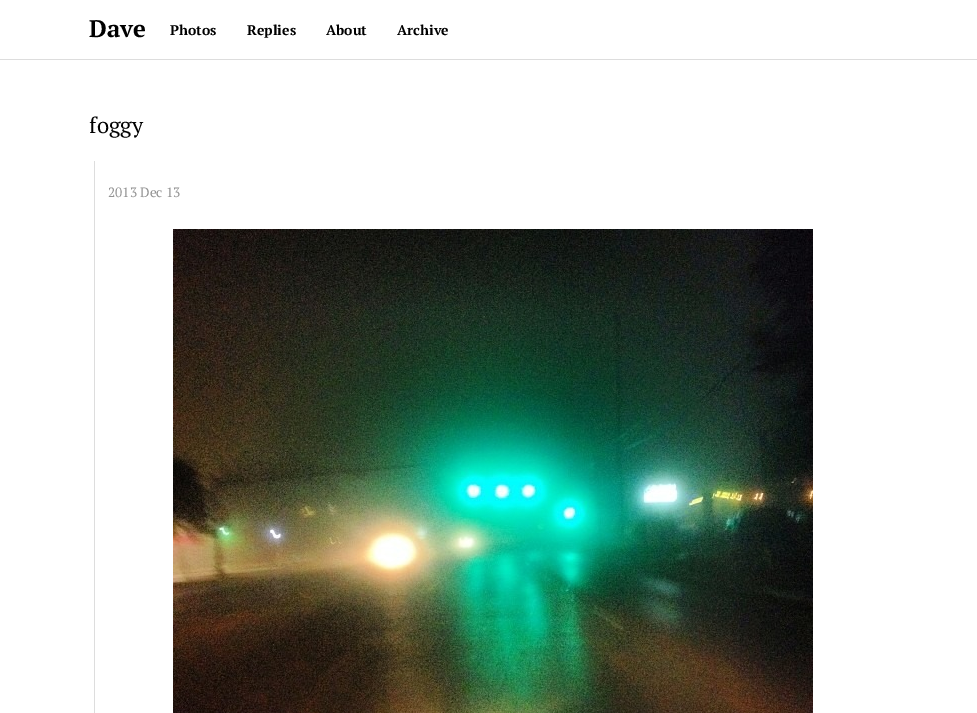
%!PS
<< /PageSize [977 713] >> setpagedevice
/picture { 5 dict begin { /h /w /y /x /name } { exch def } forall
  gsave x y translate w h scale
  w h 8 [w 0 0 h 0 0] name (r) file false 3 colorimage grestore end } def
0 713 translate 1 -1 scale
4 setmiterlimit
1 setgray
0 0 977 713 rectfill
0.867 setgray
0 59 977 1 rectfill
/PTSerif-Bold [24 0 0 -24 0 0] selectfont
0 setgray
89 37 moveto (Dave) show
/PTSerif-Bold [14 0 0 -14 0 0] selectfont
170 35 moveto (Photos) show
247 35 moveto (Replies) show
326 35 moveto (About) show
397 35 moveto (Archive) show
/PTSerif-Regular [22 0 0 -22 0 0] selectfont
89 133 moveto (foggy) show
0.867 setgray
94 161 1 552 rectfill
/PTSerif-Regular [13.5 0 0 -13.5 0 0] selectfont
0.576 setgray
108 197 moveto (2013 Dec 13) show
(img1.rgb) 173 229 640 484 picture
showpage
